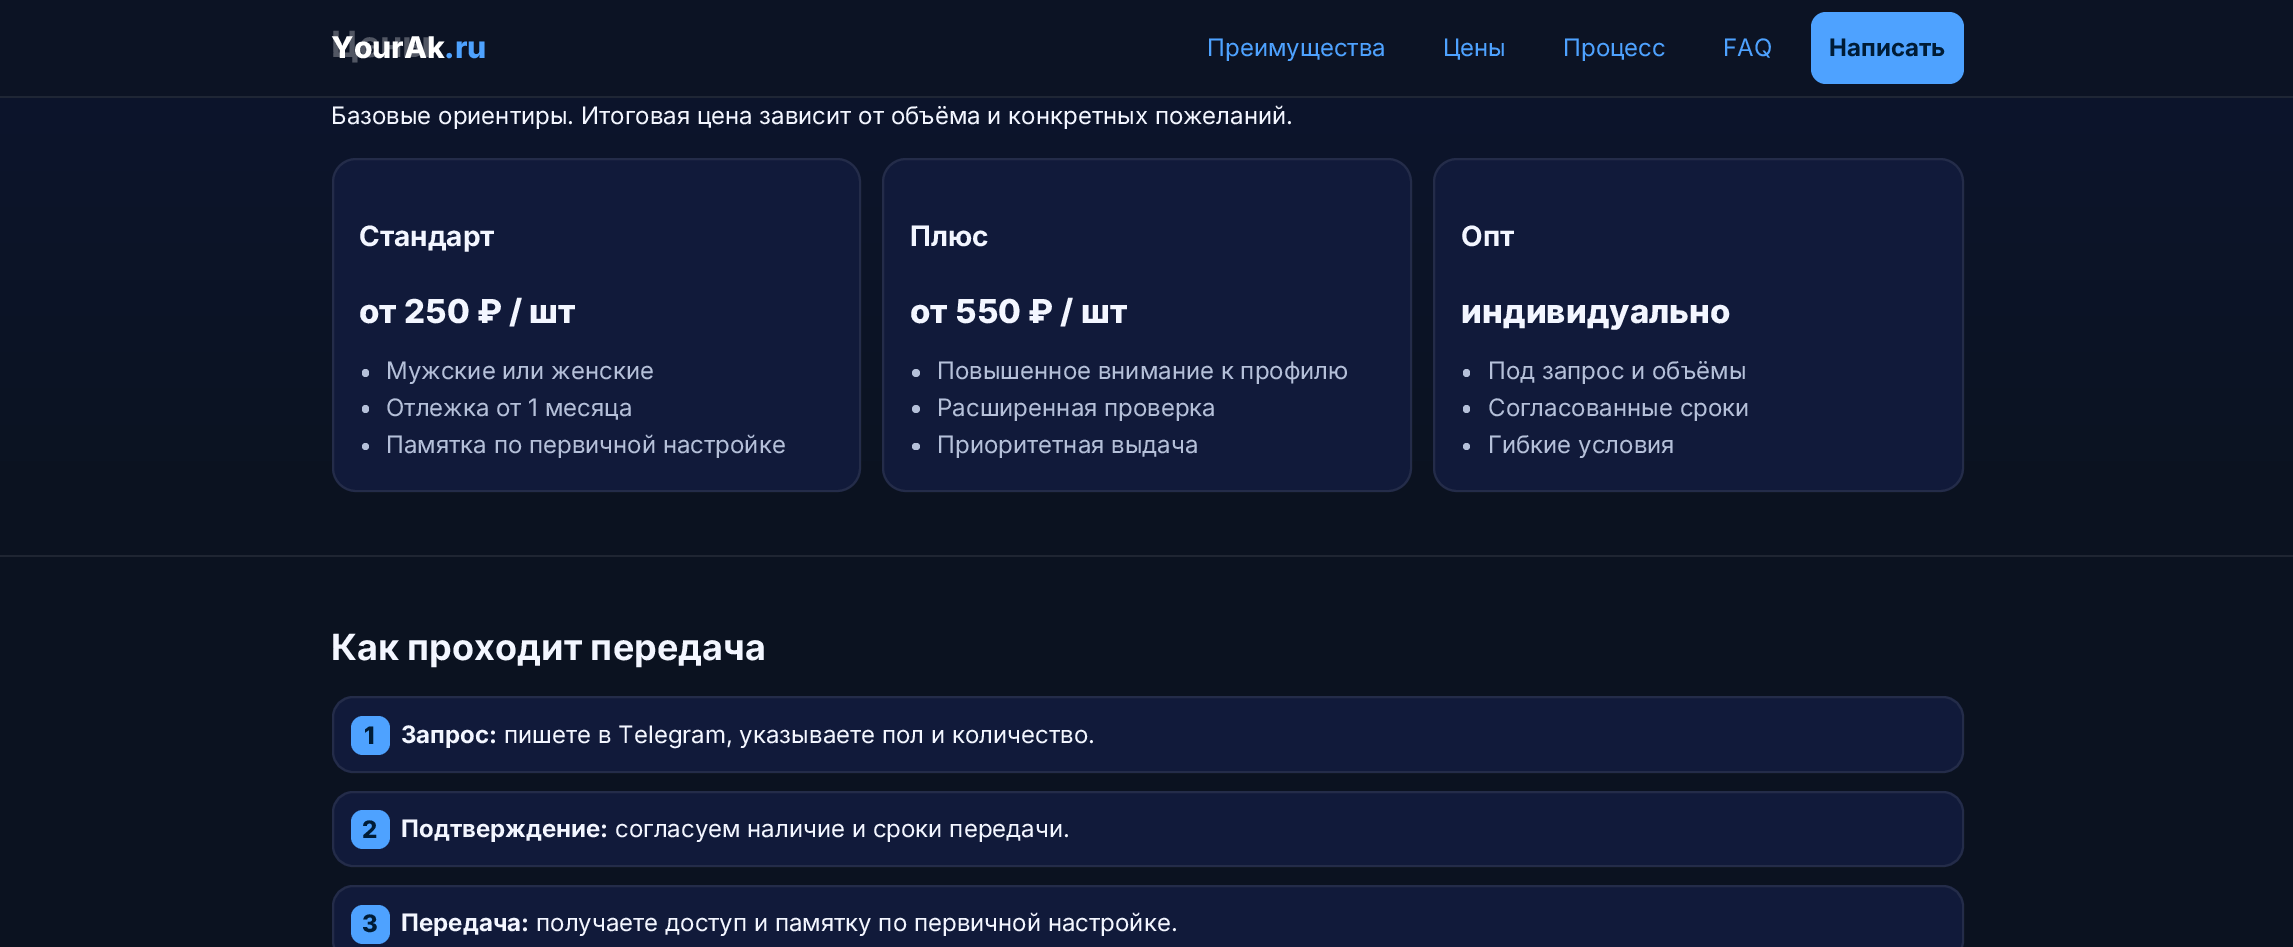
%!PS
<< /PageSize [2293 947] /PageUsesTransparency true >> setpagedevice
/alpha { dup .setfillconstantalpha .setstrokeconstantalpha } def
/roundrect { 5 dict begin { /r /h /w /y /x } { exch def } forall
  x r add y moveto x w add y 2 copy h add r arct x w add y h add x 1 index r arct
  x y h add x y r arct x y 2 copy exch w add exch r arct closepath end } def
0 .pushpdf14devicefilter
0 947 translate 1 -1 scale
4 setmiterlimit
0.043 0.071 0.125 setrgbcolor
0 0 2293 947 rectfill
gsave newpath 0 98 moveto 2293 98 lineto 2293 461 lineto 0 461 lineto closepath clip newpath
<< /ShadingType 2 /ColorSpace /DeviceRGB /Coords [1147 -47 1147 555] /Extend [true true] /Function << /FunctionType 2 /Domain [0 1] /C0 [0.055 0.086 0.188] /C1 [0.043 0.071 0.125] /N 1 >> >> shfill grestore
gsave newpath 0 0 moveto 2293 0 lineto 2293 96 lineto 0 96 lineto closepath clip newpath
<< /ShadingType 2 /ColorSpace /DeviceRGB /Coords [1147 -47 1147 555] /Extend [true true] /Function << /FunctionType 2 /Domain [0 1] /C0 [0.047 0.075 0.145] /C1 [0.043 0.071 0.125] /N 1 >> >> shfill grestore
/Inter-Bold [36 0 0 -36 0 0] selectfont
0.318 0.337 0.388 setrgbcolor
331 57 moveto (Цены) show
/Inter-Regular [24 0 0 -24 0 0] selectfont
0.953 0.965 1 setrgbcolor
331 124 moveto (Базовые ориентиры. Итоговая цена зависит от объёма и конкретных пожеланий.) show
0.067 0.102 0.227 setrgbcolor
332 158 529 334 24 roundrect fill
0.08 alpha
1 setgray
2 setlinewidth
333 159 527 332 23 roundrect stroke
/Inter-Bold [28 0 0 -28 0 0] selectfont
1 alpha
0.953 0.965 1 setrgbcolor
359 246 moveto (Стандарт) show
/Inter-ExtraBold [33 0 0 -33 0 0] selectfont
359 323 moveto (от 250 ₽ / шт) show
0.71 0.753 0.851 setrgbcolor
362 369 7 8 3.5 roundrect fill
/Inter-Regular [24 0 0 -24 0 0] selectfont
386 379 moveto (Мужские или женские) show
362 405 7 8 3.5 roundrect fill
386 416 moveto (Отлежка от 1 месяца) show
newpath 365.5 446.5 3.5 0 360 arc closepath fill
386 453 moveto (Памятка по первичной настройке) show
0.067 0.102 0.227 setrgbcolor
882 158 530 334 24 roundrect fill
0.08 alpha
1 setgray
883 159 528 332 23 roundrect stroke
/Inter-Bold [28 0 0 -28 0 0] selectfont
1 alpha
0.953 0.965 1 setrgbcolor
910 246 moveto (Плюс) show
/Inter-ExtraBold [33 0 0 -33 0 0] selectfont
910 323 moveto (от 550 ₽ / шт) show
0.71 0.753 0.851 setrgbcolor
newpath 916 373 4 0 360 arc closepath fill
/Inter-Regular [24 0 0 -24 0 0] selectfont
937 379 moveto (Повышенное внимание к профилю) show
newpath 916 409 4 0 360 arc closepath fill
937 416 moveto (Расширенная проверка) show
912 443 8 7 3.5 roundrect fill
937 453 moveto (Приоритетная выдача) show
0.067 0.102 0.227 setrgbcolor
1433 158 531 334 24 roundrect fill
0.08 alpha
1 setgray
1434 159 529 332 23 roundrect stroke
/Inter-Bold [28 0 0 -28 0 0] selectfont
1 alpha
0.953 0.965 1 setrgbcolor
1461 246 moveto (Опт) show
/Inter-ExtraBold [33 0 0 -33 0 0] selectfont
1461 323 moveto (индивидуально) show
0.71 0.753 0.851 setrgbcolor
1463 369 7 8 3.5 roundrect fill
/Inter-Regular [24 0 0 -24 0 0] selectfont
1488 379 moveto (Под запрос и объёмы) show
1463 405 7 8 3.5 roundrect fill
1488 416 moveto (Согласованные сроки) show
newpath 1466.5 446.5 3.5 0 360 arc closepath fill
1488 453 moveto (Гибкие условия) show
0.122 0.149 0.208 setrgbcolor
0 96 2293 2 rectfill
/Inter-ExtraBold [30 0 0 -30 0 0] selectfont
1 setgray
331 58 moveto (YourAk) show
0.306 0.635 1 setrgbcolor
444 58 moveto (.ru) show
/Inter-Regular [24 0 0 -24 0 0] selectfont
1207 56 moveto (Преимущества) show
1443 56 moveto (Цены) show
1563 56 moveto (Процесс) show
1723 56 moveto (FAQ) show
1811 12 153 72 15 roundrect fill
/Inter-Bold [24 0 0 -24 0 0] selectfont
0 0.11 0.212 setrgbcolor
1829 56 moveto (Написать) show
0.122 0.145 0.196 setrgbcolor
0 555 2293 2 rectfill
/Inter-Bold [36 0 0 -36 0 0] selectfont
0.953 0.965 1 setrgbcolor
331 660 moveto (Как проходит передача) show
0.067 0.102 0.227 setrgbcolor
332 696 1632 77 21 roundrect fill
0.08 alpha
1 setgray
333 697 1630 75 20 roundrect stroke
1 alpha
0.306 0.635 1 setrgbcolor
351 716 39 39 12 roundrect fill
/Inter-ExtraBold [24 0 0 -24 0 0] selectfont
0 0.11 0.212 setrgbcolor
364 744 moveto (1) show
/Inter-Bold [24 0 0 -24 0 0] selectfont
0.953 0.965 1 setrgbcolor
401 743 moveto (Запрос:) show
/Inter-Regular [24 0 0 -24 0 0] selectfont
504 743 moveto (пишете в Telegram, указываете пол и количество.) show
0.067 0.102 0.227 setrgbcolor
332 791 1632 76 21 roundrect fill
0.08 alpha
1 setgray
333 792 1630 74 20 roundrect stroke
1 alpha
0.306 0.635 1 setrgbcolor
351 810 39 39 12 roundrect fill
/Inter-ExtraBold [24 0 0 -24 0 0] selectfont
0 0.11 0.212 setrgbcolor
362 838 moveto (2) show
/Inter-Bold [24 0 0 -24 0 0] selectfont
0.953 0.965 1 setrgbcolor
401 837 moveto (Подтверждение:) show
/Inter-Regular [24 0 0 -24 0 0] selectfont
615 837 moveto (согласуем наличие и сроки передачи.) show
0.067 0.102 0.227 setrgbcolor
332 885 1632 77 21 roundrect fill
0.08 alpha
1 setgray
333 886 1630 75 20 roundrect stroke
1 alpha
0.306 0.635 1 setrgbcolor
351 905 39 39 12 roundrect fill
/Inter-ExtraBold [24 0 0 -24 0 0] selectfont
0 0.11 0.212 setrgbcolor
362 932 moveto (3) show
/Inter-Bold [24 0 0 -24 0 0] selectfont
0.953 0.965 1 setrgbcolor
401 931 moveto (Передача:) show
/Inter-Regular [24 0 0 -24 0 0] selectfont
536 931 moveto (получаете доступ и памятку по первичной настройке.) show
.poppdf14devicefilter showpage
